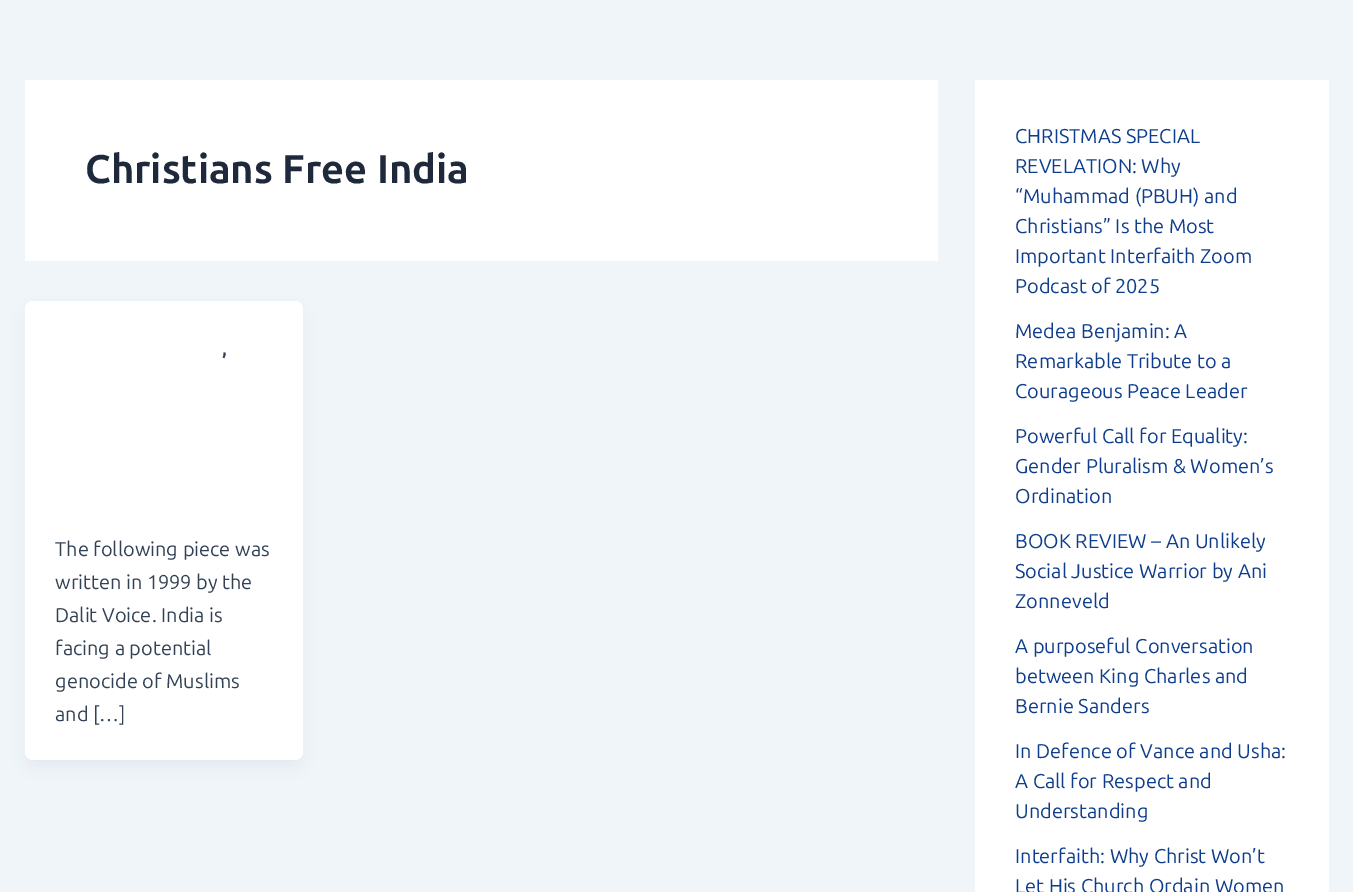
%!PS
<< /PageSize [1353 892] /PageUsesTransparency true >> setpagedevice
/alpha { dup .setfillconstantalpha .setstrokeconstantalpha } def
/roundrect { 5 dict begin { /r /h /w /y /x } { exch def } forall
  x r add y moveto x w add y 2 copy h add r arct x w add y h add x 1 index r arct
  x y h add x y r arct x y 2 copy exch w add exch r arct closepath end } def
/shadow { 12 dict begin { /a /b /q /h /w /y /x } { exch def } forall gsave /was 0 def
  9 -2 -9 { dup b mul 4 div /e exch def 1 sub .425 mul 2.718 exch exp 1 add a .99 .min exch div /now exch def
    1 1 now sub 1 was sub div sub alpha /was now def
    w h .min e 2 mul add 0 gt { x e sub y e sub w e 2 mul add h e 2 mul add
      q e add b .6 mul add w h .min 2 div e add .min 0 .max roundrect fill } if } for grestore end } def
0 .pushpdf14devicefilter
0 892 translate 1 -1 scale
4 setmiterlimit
0.941 0.961 0.98 setrgbcolor
0 0 1353 892 rectfill
1 setgray
25 80 913 181 rectfill
/Ubuntu-Bold [40 0 0 -40 0 0] selectfont
0.118 0.161 0.231 setrgbcolor
85 183 moveto (Christians Free India) show
0.063 0.094 0.157 setrgbcolor
28 311 272 454 5 9.5 0.05 shadow
1 setgray
25 301 278 459 8 roundrect fill
/Ubuntu-SemiBold [20 0 0 -20 0 0] selectfont
0.2 0.255 0.333 setrgbcolor
222 355 moveto (,) show
/Ubuntu-Regular [20 0 0 -20 0 0] selectfont
55 556 moveto (The following piece was) show
55 589 moveto (written in 1999 by the) show
55 622 moveto (Dalit Voice. India is) show
55 655 moveto (facing a potential) show
55 688 moveto (genocide of Muslims) show
55 721 moveto (and […]) show
1 setgray
975 80 354 812 rectfill
0.051 0.239 0.549 setrgbcolor
1015 143 moveto (CHRISTMAS SPECIAL) show
1015 173 moveto (REVELATION: Why) show
1015 203 moveto (“Muhammad \(PBUH\) and) show
1015 233 moveto (Christians” Is the Most) show
1015 263 moveto (Important Interfaith Zoom) show
1015 293 moveto (Podcast of 2025) show
1015 338 moveto (Medea Benjamin: A) show
1015 368 moveto (Remarkable Tribute to a) show
1015 398 moveto (Courageous Peace Leader) show
1015 443 moveto (Powerful Call for Equality:) show
1015 473 moveto (Gender Pluralism & Women’s) show
1015 503 moveto (Ordination) show
1015 548 moveto (BOOK REVIEW – An Unlikely) show
1015 578 moveto (Social Justice Warrior by Ani) show
1015 608 moveto (Zonneveld) show
1015 653 moveto (A purposeful Conversation) show
1015 683 moveto (between King Charles and) show
1015 713 moveto (Bernie Sanders) show
1015 758 moveto (In Defence of Vance and Usha:) show
1015 788 moveto (A Call for Respect and) show
1015 818 moveto (Understanding) show
1015 863 moveto (Interfaith: Why Christ Won’t) show
1015 893 moveto (Let His Church Ordain Women) show
.poppdf14devicefilter showpage
